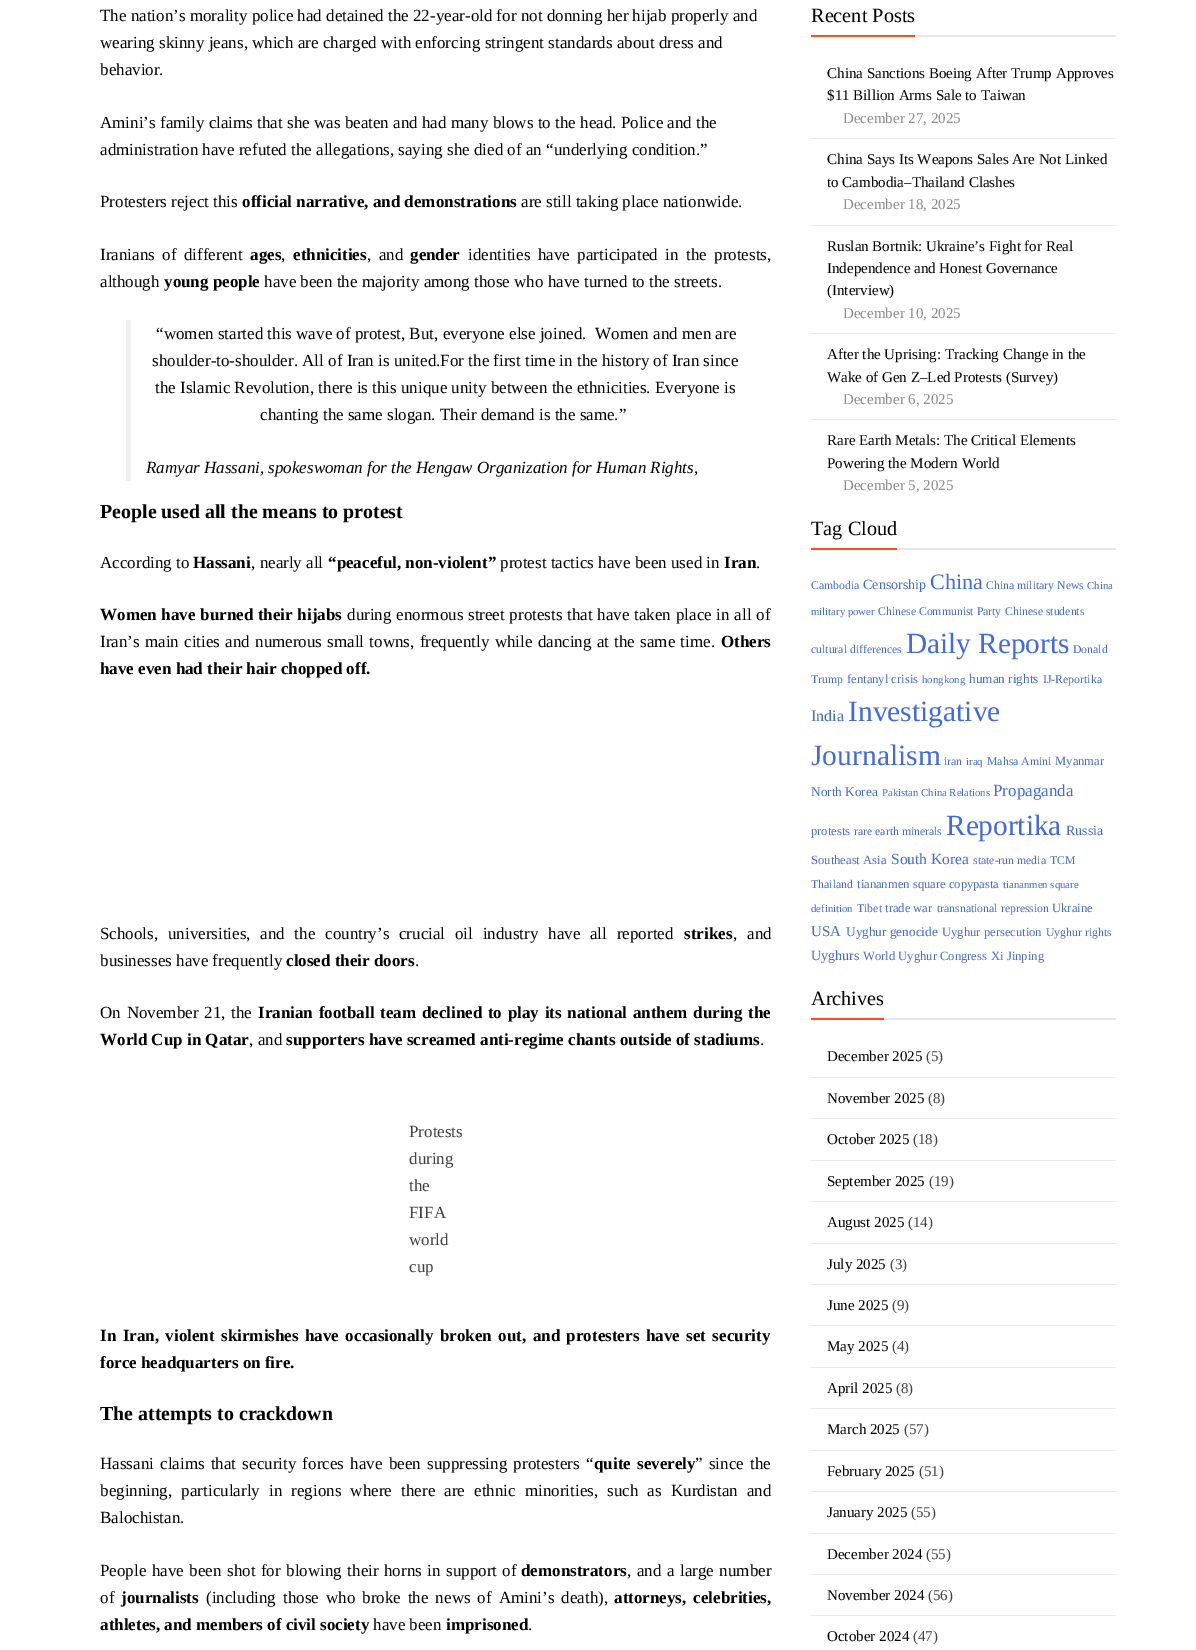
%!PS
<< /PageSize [1196 1650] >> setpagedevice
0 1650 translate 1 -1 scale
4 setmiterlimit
1 setgray
0 0 1196 1650 rectfill
/LiberationSerif-Regular [17 0 0 -17 0 0] selectfont
0 setgray
100 21 moveto (The nation’s morality police had detained the 22-year-old for not donning her hijab properly and) show
100 48 moveto (wearing skinny jeans, which are charged with enforcing stringent standards about dress and) show
100 75 moveto (behavior.) show
100 128 moveto (Amini’s family claims that she was beaten and had many blows to the head. Police and the) show
100 155 moveto (administration have refuted the allegations, saying she died of an “underlying condition.”) show
100 207 moveto (Protesters reject this) show
/LiberationSerif-Bold [17 0 0 -17 0 0] selectfont
242 207 moveto (official narrative, and demonstrations) show
/LiberationSerif-Regular [17 0 0 -17 0 0] selectfont
521 207 moveto (are still taking place nationwide.) show
100 260 moveto 3.25 0 32 (Iranians of different) widthshow
/LiberationSerif-Bold [17 0 0 -17 0 0] selectfont
250 260 moveto (ages) show
/LiberationSerif-Regular [17 0 0 -17 0 0] selectfont
281 260 moveto (,) show
/LiberationSerif-Bold [17 0 0 -17 0 0] selectfont
293 260 moveto (ethnicities) show
/LiberationSerif-Regular [17 0 0 -17 0 0] selectfont
367 260 moveto 3.25 0 32 (, and) widthshow
/LiberationSerif-Bold [17 0 0 -17 0 0] selectfont
410 260 moveto (gender) show
/LiberationSerif-Regular [17 0 0 -17 0 0] selectfont
468 260 moveto 3.25 0 32 (identities have participated in the protests,) widthshow
100 287 moveto (although) show
/LiberationSerif-Bold [17 0 0 -17 0 0] selectfont
164 287 moveto (young people) show
/LiberationSerif-Regular [17 0 0 -17 0 0] selectfont
264 287 moveto (have been the majority among those who have turned to the streets.) show
0.941 setgray
126 320 5 161 rectfill
0 setgray
156 339 moveto (“women started this wave of protest, But, everyone else joined.  Women and men are) show
152 366 moveto (shoulder-to-shoulder. All of Iran is united.For the first time in the history of Iran since) show
155 393 moveto (the Islamic Revolution, there is this unique unity between the ethnicities. Everyone is) show
260 420 moveto (chanting the same slogan. Their demand is the same.”) show
/LiberationSerif-Italic [17 0 0 -17 0 0] selectfont
146 473 moveto (Ramyar Hassani, spokeswoman for the Hengaw Organization for Human Rights,) show
/LiberationSerif-Bold [19.9 0 0 -19.9 0 0] selectfont
100 518 moveto (People used all the means to protest) show
/LiberationSerif-Regular [17 0 0 -17 0 0] selectfont
100 568 moveto (According to) show
/LiberationSerif-Bold [17 0 0 -17 0 0] selectfont
193 568 moveto (Hassani) show
/LiberationSerif-Regular [17 0 0 -17 0 0] selectfont
251 568 moveto (, nearly all) show
/LiberationSerif-Bold [17 0 0 -17 0 0] selectfont
328 568 moveto (“peaceful, non-violent”) show
/LiberationSerif-Regular [17 0 0 -17 0 0] selectfont
500 568 moveto (protest tactics have been used in) show
/LiberationSerif-Bold [17 0 0 -17 0 0] selectfont
724 568 moveto (Iran) show
/LiberationSerif-Regular [17 0 0 -17 0 0] selectfont
756 568 moveto (.) show
/LiberationSerif-Bold [17 0 0 -17 0 0] selectfont
100 620 moveto 0.5 0 32 (Women have burned their hijabs) widthshow
/LiberationSerif-Regular [17 0 0 -17 0 0] selectfont
347 620 moveto 0.5 0 32 (during enormous street protests that have taken place in all of) widthshow
100 647 moveto 1 0 32 (Iran’s main cities and numerous small towns, frequently while dancing at the same time.) widthshow
/LiberationSerif-Bold [17 0 0 -17 0 0] selectfont
721 647 moveto (Others) show
100 674 moveto (have even had their hair chopped off.) show
/LiberationSerif-Regular [17 0 0 -17 0 0] selectfont
100 939 moveto 5.5 0 32 (Schools, universities, and the country’s crucial oil industry have all reported) widthshow
/LiberationSerif-Bold [17 0 0 -17 0 0] selectfont
684 939 moveto (strikes) show
/LiberationSerif-Regular [17 0 0 -17 0 0] selectfont
733 939 moveto 5.5 0 32 (, and) widthshow
100 966 moveto (businesses have frequently) show
/LiberationSerif-Bold [17 0 0 -17 0 0] selectfont
286 966 moveto (closed their doors) show
/LiberationSerif-Regular [17 0 0 -17 0 0] selectfont
415 966 moveto (.) show
100 1018 moveto 1.5 0 32 (On November 21, the) widthshow
/LiberationSerif-Bold [17 0 0 -17 0 0] selectfont
258 1018 moveto 1.5 0 32 (Iranian football team declined to play its national anthem during the) widthshow
100 1045 moveto (World Cup in Qatar) show
/LiberationSerif-Regular [17 0 0 -17 0 0] selectfont
249 1045 moveto (, and) show
/LiberationSerif-Bold [17 0 0 -17 0 0] selectfont
286 1045 moveto (supporters have screamed anti-regime chants outside of stadiums) show
/LiberationSerif-Regular [17 0 0 -17 0 0] selectfont
760 1045 moveto (.) show
0.251 setgray
409 1137 moveto (Protests) show
409 1164 moveto (during) show
409 1191 moveto (the) show
409 1218 moveto (FIFA) show
409 1245 moveto (world) show
409 1272 moveto (cup) show
/LiberationSerif-Bold [17 0 0 -17 0 0] selectfont
0 setgray
100 1341 moveto 2.25 0 32 (In Iran, violent skirmishes have occasionally broken out, and protesters have set security) widthshow
100 1368 moveto (force headquarters on fire.) show
/LiberationSerif-Bold [19.9 0 0 -19.9 0 0] selectfont
100 1420 moveto (The attempts to crackdown) show
/LiberationSerif-Regular [17 0 0 -17 0 0] selectfont
100 1469 moveto 2 0 32 (Hassani claims that security forces have been suppressing protesters “) widthshow
/LiberationSerif-Bold [17 0 0 -17 0 0] selectfont
594 1469 moveto 2 0 32 (quite severely) widthshow
/LiberationSerif-Regular [17 0 0 -17 0 0] selectfont
695 1469 moveto 2 0 32 (” since the) widthshow
100 1496 moveto 4.9 0 32 (beginning, particularly in regions where there are ethnic minorities, such as Kurdistan and) widthshow
100 1523 moveto (Balochistan.) show
100 1576 moveto 1.25 0 32 (People have been shot for blowing their horns in support of) widthshow
/LiberationSerif-Bold [17 0 0 -17 0 0] selectfont
521 1576 moveto (demonstrators) show
/LiberationSerif-Regular [17 0 0 -17 0 0] selectfont
627 1576 moveto 1.25 0 32 (, and a large number) widthshow
100 1603 moveto (of) show
/LiberationSerif-Bold [17 0 0 -17 0 0] selectfont
121 1603 moveto (journalists) show
/LiberationSerif-Regular [17 0 0 -17 0 0] selectfont
206 1603 moveto 2.75 0 32 (\(including those who broke the news of Amini’s death\),) widthshow
/LiberationSerif-Bold [17 0 0 -17 0 0] selectfont
614 1603 moveto 2.75 0 32 (attorneys, celebrities,) widthshow
100 1630 moveto (athletes, and members of civil society) show
/LiberationSerif-Regular [17 0 0 -17 0 0] selectfont
373 1630 moveto (have been) show
/LiberationSerif-Bold [17 0 0 -17 0 0] selectfont
446 1630 moveto (imprisoned) show
/LiberationSerif-Regular [17 0 0 -17 0 0] selectfont
528 1630 moveto (.) show
0.898 setgray
915 35 201 2 rectfill
0.992 0.31 0.094 setrgbcolor
811 35 104 2 rectfill
/LiberationSerif-Regular [20.25 0 0 -20.25 0 0] selectfont
0 setgray
811 22 moveto (Recent Posts) show
0.918 setgray
811 138 305 1 rectfill
/LiberationSerif-Regular [15 0 0 -15 0 0] selectfont
0 setgray
827 78 moveto (China Sanctions Boeing After Trump Approves) show
827 100 moveto ($11 Billion Arms Sale to Taiwan) show
0.541 0.541 0.549 setrgbcolor
843 123 moveto (December 27, 2025) show
0.918 setgray
811 225 305 1 rectfill
0 setgray
827 164 moveto (China Says Its Weapons Sales Are Not Linked) show
827 187 moveto (to Cambodia–Thailand Clashes) show
0.541 0.541 0.549 setrgbcolor
843 209 moveto (December 18, 2025) show
0.918 setgray
811 333 305 1 rectfill
0 setgray
827 251 moveto (Ruslan Bortnik: Ukraine’s Fight for Real) show
827 273 moveto (Independence and Honest Governance) show
827 295 moveto (\(Interview\)) show
0.541 0.541 0.549 setrgbcolor
843 318 moveto (December 10, 2025) show
0.918 setgray
811 419 305 1 rectfill
0 setgray
827 359 moveto (After the Uprising: Tracking Change in the) show
827 382 moveto (Wake of Gen Z–Led Protests \(Survey\)) show
0.541 0.541 0.549 setrgbcolor
843 404 moveto (December 6, 2025) show
0 setgray
827 445 moveto (Rare Earth Metals: The Critical Elements) show
827 468 moveto (Powering the Modern World) show
0.541 0.541 0.549 setrgbcolor
843 490 moveto (December 5, 2025) show
0.898 setgray
897 548 219 2 rectfill
0.992 0.31 0.094 setrgbcolor
811 548 86 2 rectfill
/LiberationSerif-Regular [20.25 0 0 -20.25 0 0] selectfont
0 setgray
811 535 moveto (Tag Cloud) show
/LiberationSerif-Regular [11.75 0 0 -11.75 0 0] selectfont
0.255 0.412 0.882 setrgbcolor
811 589 moveto (Cambodia) show
/LiberationSerif-Regular [14 0 0 -14 0 0] selectfont
863 589 moveto (Censorship) show
/LiberationSerif-Regular [22 0 0 -22 0 0] selectfont
930 589 moveto (China) show
/LiberationSerif-Regular [11.75 0 0 -11.75 0 0] selectfont
986 589 moveto (China military News) show
/LiberationSerif-Regular [10.75 0 0 -10.75 0 0] selectfont
1087 589 moveto (China) show
811 615 moveto (military power) show
/LiberationSerif-Regular [11.75 0 0 -11.75 0 0] selectfont
878 615 moveto (Chinese Communist Party) show
1005 615 moveto (Chinese students) show
811 653 moveto (cultural differences) show
/LiberationSerif-Regular [29.25 0 0 -29.25 0 0] selectfont
906 653 moveto (Daily Reports) show
/LiberationSerif-Regular [11.75 0 0 -11.75 0 0] selectfont
1073 653 moveto (Donald) show
811 683 moveto (Trump) show
/LiberationSerif-Regular [12.6 0 0 -12.6 0 0] selectfont
847 683 moveto (fentanyl crisis) show
/LiberationSerif-Regular [10.75 0 0 -10.75 0 0] selectfont
922 683 moveto (hongkong) show
/LiberationSerif-Regular [13.25 0 0 -13.25 0 0] selectfont
969 683 moveto (human rights) show
/LiberationSerif-Regular [11.75 0 0 -11.75 0 0] selectfont
1043 683 moveto (IJ-Reportika) show
/LiberationSerif-Regular [16 0 0 -16 0 0] selectfont
811 721 moveto (India) show
/LiberationSerif-Regular [29.5 0 0 -29.5 0 0] selectfont
848 721 moveto (Investigative) show
811 765 moveto (Journalism) show
/LiberationSerif-Regular [11.75 0 0 -11.75 0 0] selectfont
944 765 moveto (iran) show
/LiberationSerif-Regular [10.75 0 0 -10.75 0 0] selectfont
966 765 moveto (iraq) show
/LiberationSerif-Regular [11.75 0 0 -11.75 0 0] selectfont
987 765 moveto (Mahsa Amini) show
/LiberationSerif-Regular [12.6 0 0 -12.6 0 0] selectfont
1055 765 moveto (Myanmar) show
/LiberationSerif-Regular [13.25 0 0 -13.25 0 0] selectfont
811 796 moveto (North Korea) show
/LiberationSerif-Regular [10.75 0 0 -10.75 0 0] selectfont
882 796 moveto (Pakistan China Relations) show
/LiberationSerif-Regular [17 0 0 -17 0 0] selectfont
993 796 moveto (Propaganda) show
/LiberationSerif-Regular [12.6 0 0 -12.6 0 0] selectfont
811 835 moveto (protests) show
/LiberationSerif-Regular [11.75 0 0 -11.75 0 0] selectfont
854 835 moveto (rare earth minerals) show
/LiberationSerif-Regular [29.25 0 0 -29.25 0 0] selectfont
946 835 moveto (Reportika) show
/LiberationSerif-Regular [14 0 0 -14 0 0] selectfont
1066 835 moveto (Russia) show
/LiberationSerif-Regular [12.6 0 0 -12.6 0 0] selectfont
811 864 moveto (Southeast Asia) show
/LiberationSerif-Regular [15.5 0 0 -15.5 0 0] selectfont
891 864 moveto (South Korea) show
/LiberationSerif-Regular [11.75 0 0 -11.75 0 0] selectfont
973 864 moveto (state-run media) show
1050 864 moveto (TCM) show
811 888 moveto (Thailand) show
/LiberationSerif-Regular [12.6 0 0 -12.6 0 0] selectfont
857 888 moveto (tiananmen square copypasta) show
/LiberationSerif-Regular [10.75 0 0 -10.75 0 0] selectfont
1003 888 moveto (tiananmen square) show
811 912 moveto (definition) show
/LiberationSerif-Regular [11.75 0 0 -11.75 0 0] selectfont
857 912 moveto (Tibet) show
/LiberationSerif-Regular [12.6 0 0 -12.6 0 0] selectfont
885 912 moveto (trade war) show
/LiberationSerif-Regular [11.75 0 0 -11.75 0 0] selectfont
937 912 moveto (transnational repression) show
/LiberationSerif-Regular [12.6 0 0 -12.6 0 0] selectfont
1052 912 moveto (Ukraine) show
/LiberationSerif-Regular [15 0 0 -15 0 0] selectfont
811 936 moveto (USA) show
/LiberationSerif-Regular [13.25 0 0 -13.25 0 0] selectfont
846 936 moveto (Uyghur genocide) show
/LiberationSerif-Regular [12.6 0 0 -12.6 0 0] selectfont
942 936 moveto (Uyghur persecution) show
/LiberationSerif-Regular [11.75 0 0 -11.75 0 0] selectfont
1046 936 moveto (Uyghur rights) show
/LiberationSerif-Regular [14 0 0 -14 0 0] selectfont
811 960 moveto (Uyghurs) show
/LiberationSerif-Regular [12.6 0 0 -12.6 0 0] selectfont
863 960 moveto (World Uyghur Congress) show
991 960 moveto (Xi Jinping) show
0.898 setgray
884 1018 232 2 rectfill
0.992 0.31 0.094 setrgbcolor
811 1018 73 2 rectfill
/LiberationSerif-Regular [20.25 0 0 -20.25 0 0] selectfont
0 setgray
811 1005 moveto (Archives) show
0.918 setgray
811 1077 305 1 rectfill
/LiberationSerif-Regular [15 0 0 -15 0 0] selectfont
0 setgray
827 1061 moveto (December 2025) show
0.251 setgray
926 1061 moveto (\(5\)) show
0.918 setgray
811 1118 305 1 rectfill
0 setgray
827 1103 moveto (November 2025) show
0.251 setgray
928 1103 moveto (\(8\)) show
0.918 setgray
811 1160 305 1 rectfill
0 setgray
827 1144 moveto (October 2025) show
0.251 setgray
913 1144 moveto (\(18\)) show
0.918 setgray
811 1201 305 1 rectfill
0 setgray
827 1186 moveto (September 2025) show
0.251 setgray
929 1186 moveto (\(19\)) show
0.918 setgray
811 1243 305 1 rectfill
0 setgray
827 1227 moveto (August 2025) show
0.251 setgray
908 1227 moveto (\(14\)) show
0.918 setgray
811 1284 305 1 rectfill
0 setgray
827 1269 moveto (July 2025) show
0.251 setgray
890 1269 moveto (\(3\)) show
0.918 setgray
811 1325 305 1 rectfill
0 setgray
827 1310 moveto (June 2025) show
0.251 setgray
892 1310 moveto (\(9\)) show
0.918 setgray
811 1367 305 1 rectfill
0 setgray
827 1351 moveto (May 2025) show
0.251 setgray
892 1351 moveto (\(4\)) show
0.918 setgray
811 1408 305 1 rectfill
0 setgray
827 1393 moveto (April 2025) show
0.251 setgray
896 1393 moveto (\(8\)) show
0.918 setgray
811 1450 305 1 rectfill
0 setgray
827 1434 moveto (March 2025) show
0.251 setgray
904 1434 moveto (\(57\)) show
0.918 setgray
811 1491 305 1 rectfill
0 setgray
827 1476 moveto (February 2025) show
0.251 setgray
919 1476 moveto (\(51\)) show
0.918 setgray
811 1533 305 1 rectfill
0 setgray
827 1517 moveto (January 2025) show
0.251 setgray
911 1517 moveto (\(55\)) show
0.918 setgray
811 1574 305 1 rectfill
0 setgray
827 1559 moveto (December 2024) show
0.251 setgray
926 1559 moveto (\(55\)) show
0.918 setgray
811 1615 305 1 rectfill
0 setgray
827 1600 moveto (November 2024) show
0.251 setgray
928 1600 moveto (\(56\)) show
0 setgray
827 1641 moveto (October 2024) show
0.251 setgray
913 1641 moveto (\(47\)) show
showpage
